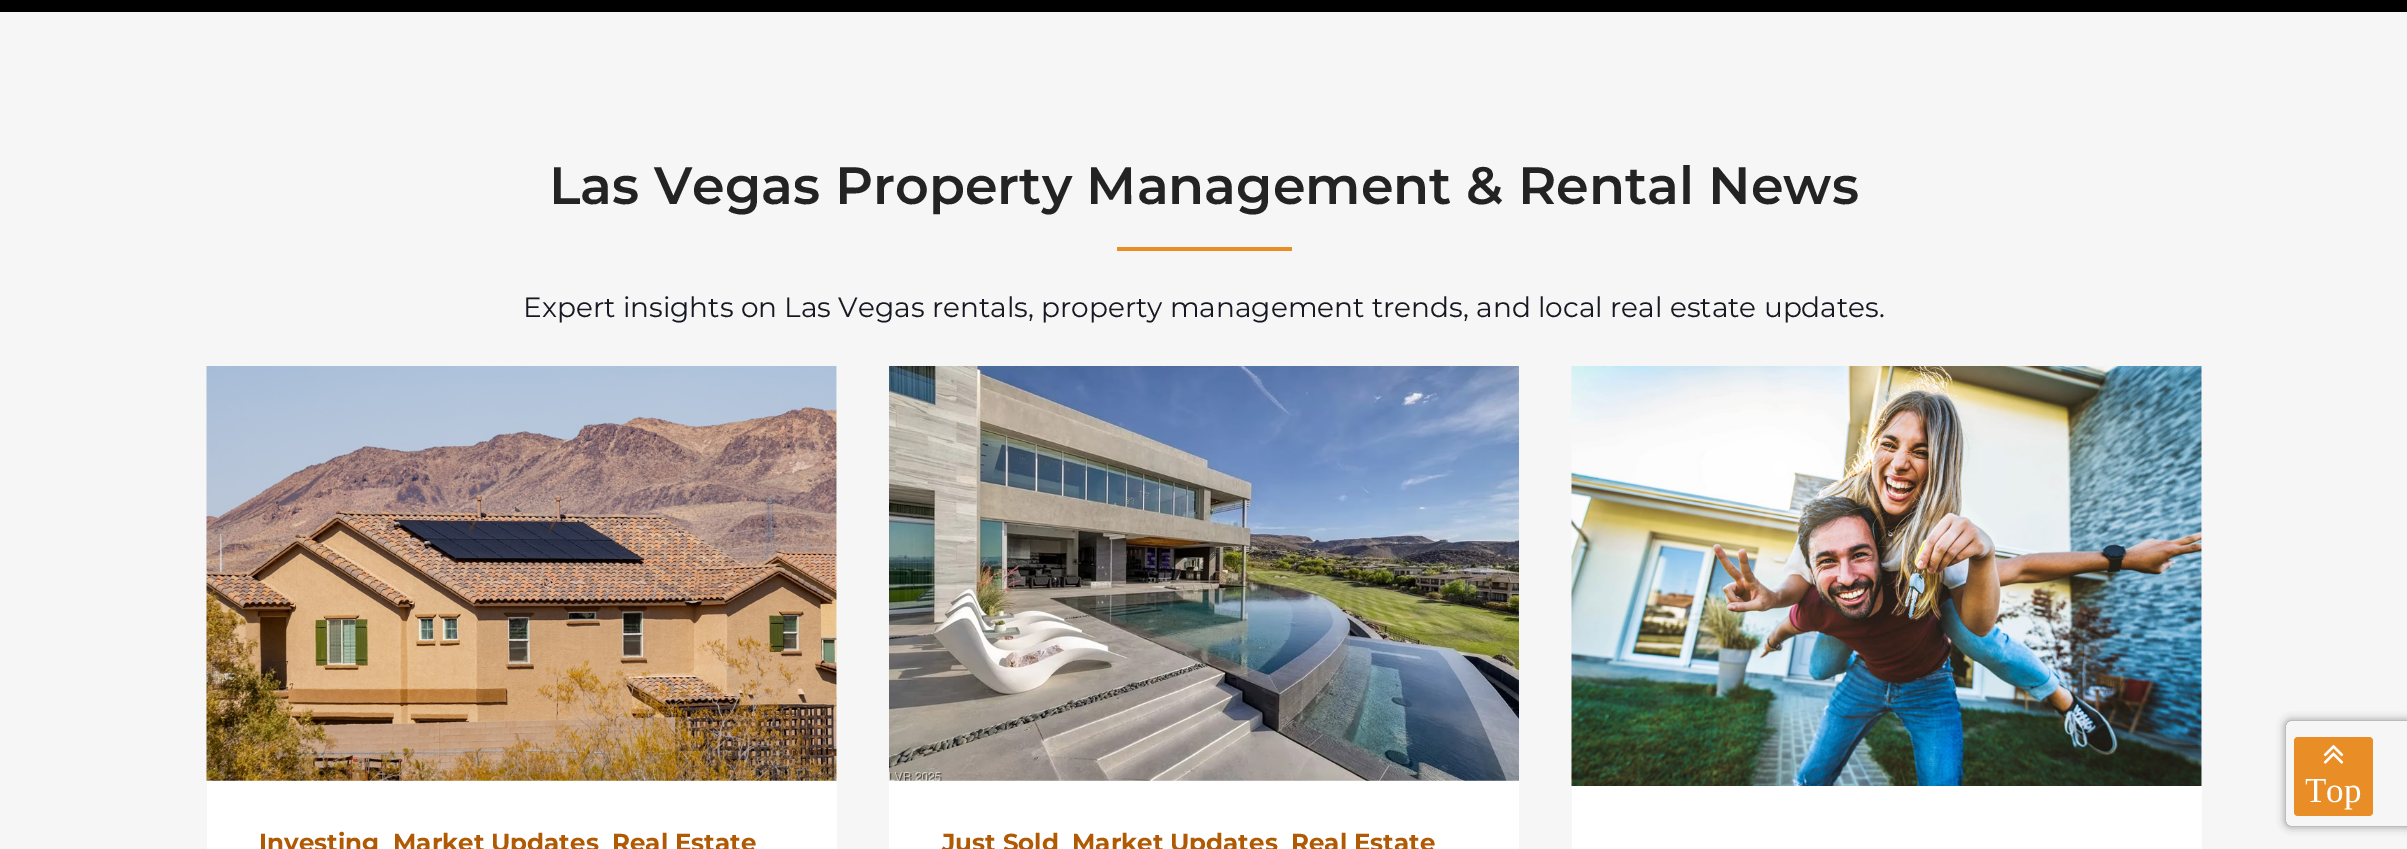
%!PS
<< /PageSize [2407 849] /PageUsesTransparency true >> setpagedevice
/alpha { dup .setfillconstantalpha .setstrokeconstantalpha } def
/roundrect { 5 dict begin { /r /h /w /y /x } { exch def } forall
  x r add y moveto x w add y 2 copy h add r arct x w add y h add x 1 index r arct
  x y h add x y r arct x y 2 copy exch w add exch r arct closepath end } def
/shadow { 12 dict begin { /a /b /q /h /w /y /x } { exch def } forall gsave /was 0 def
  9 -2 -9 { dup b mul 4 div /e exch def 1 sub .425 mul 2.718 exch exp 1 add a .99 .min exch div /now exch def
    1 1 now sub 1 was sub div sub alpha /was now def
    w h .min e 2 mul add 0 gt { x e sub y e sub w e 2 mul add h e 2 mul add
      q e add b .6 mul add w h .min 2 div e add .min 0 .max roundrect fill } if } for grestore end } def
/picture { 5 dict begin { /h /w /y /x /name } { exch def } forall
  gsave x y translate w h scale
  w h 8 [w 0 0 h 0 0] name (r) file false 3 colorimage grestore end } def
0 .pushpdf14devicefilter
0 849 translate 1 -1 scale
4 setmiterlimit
0 setgray
0 0 2407 849 rectfill
0.965 setgray
0 12 2407 837 rectfill
/Montserrat-SemiBold [52.5 0 0 -52.5 0 0] selectfont
0.137 setgray
549 204 moveto (Las Vegas Property Management & Rental News) show
0.914 0.553 0.149 setrgbcolor
1117 247 175 4 rectfill
/Montserrat-Regular [28 0 0 -28 0 0] selectfont
0.09 0.094 0.133 setrgbcolor
523 317 moveto (Expert insights on Las Vegas rentals, property management trends, and local real estate updates.) show
1 setgray
207 366 630 483 rectfill
(img1.rgb) 206 366 631 415 picture
/Montserrat-Bold [24.5 0 0 -24.5 0 0] selectfont
0.69 0.353 0.016 setrgbcolor
259 851 moveto (Investing) show
393 851 moveto (Market Updates) show
612 851 moveto (Real Estate) show
1 setgray
889 780 630 69 rectfill
(img2.rgb) 889 366 630 415 picture
0.69 0.353 0.016 setrgbcolor
942 851 moveto (Just Sold) show
1072 851 moveto (Market Updates) show
1291 851 moveto (Real Estate) show
1 setgray
1572 366 630 483 rectfill
(img3.rgb) 1571 366 631 420 picture
gsave
newpath 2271 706 moveto 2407 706 lineto 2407 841 lineto 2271 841 lineto closepath 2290 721 moveto 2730 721 lineto 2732 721 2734 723 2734 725 curveto 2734 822 lineto 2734 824 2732 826 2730 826 curveto 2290 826 lineto 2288 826 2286 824 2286 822 curveto 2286 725 lineto 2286 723 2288 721 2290 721 curveto closepath eoclip newpath
0.502 setgray
2286 721 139 105 4 4.5 1 shadow
grestore
0.914 0.553 0.149 setrgbcolor
2294 737 79 79 4 roundrect fill
(img4.rgb) 2323 744 21 20 picture
/LiberationSerif-Regular [35 0 0 -35 0 0] selectfont
1 setgray
2305 802 moveto (Top) show
.poppdf14devicefilter showpage
